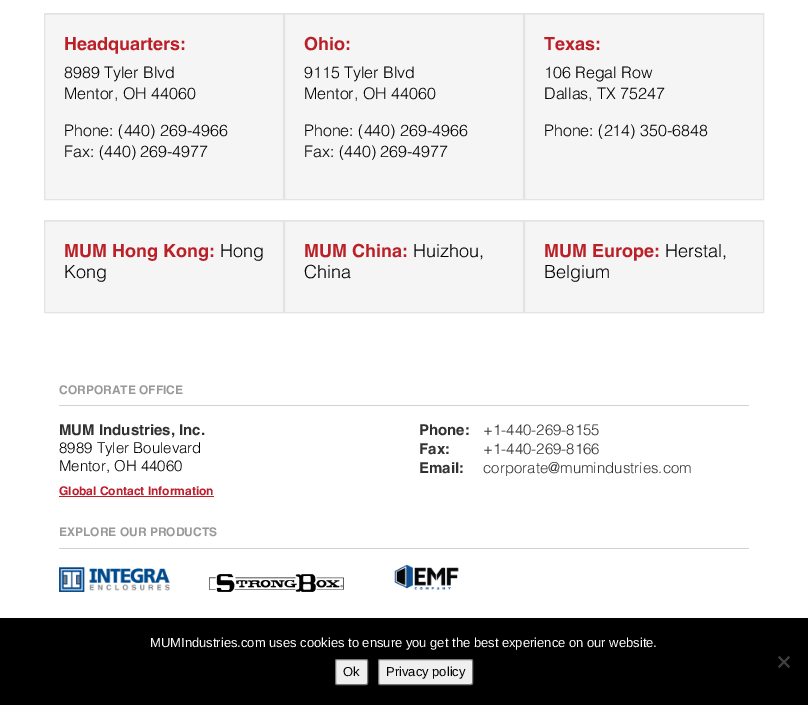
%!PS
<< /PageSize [808 705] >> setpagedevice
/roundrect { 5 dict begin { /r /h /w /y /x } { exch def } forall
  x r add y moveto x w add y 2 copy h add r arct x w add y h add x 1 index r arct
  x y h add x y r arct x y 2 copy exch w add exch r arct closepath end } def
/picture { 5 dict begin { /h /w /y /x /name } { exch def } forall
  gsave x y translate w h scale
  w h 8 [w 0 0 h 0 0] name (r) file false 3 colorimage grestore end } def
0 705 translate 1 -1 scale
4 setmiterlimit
1 setgray
0 0 808 705 rectfill
0.961 setgray
45 15 238 184 rectfill
0.914 setgray
45 14 238 1 rectfill
0.89 setgray
44.5 13.5 239 186 rectstroke
/Helvetica-Bold [18 0 0 -18 0 0] selectfont
0.733 0.125 0.157 setrgbcolor
64 50 moveto (Headquarters:) show
/Helvetica-Light [16 0 0 -16 0 0] selectfont
0 setgray
64 78 moveto (8989 Tyler Blvd) show
64 99 moveto (Mentor, OH 44060) show
64 136 moveto (Phone: \(440\) 269-4966) show
64 157 moveto (Fax: \(440\) 269-4977) show
0.961 setgray
285 15 238 184 rectfill
0.914 setgray
285 14 238 1 rectfill
0.89 setgray
284.5 13.5 239 186 rectstroke
/Helvetica-Bold [18 0 0 -18 0 0] selectfont
0.733 0.125 0.157 setrgbcolor
304 50 moveto (Ohio:) show
/Helvetica-Light [16 0 0 -16 0 0] selectfont
0 setgray
304 78 moveto (9115 Tyler Blvd) show
304 99 moveto (Mentor, OH 44060) show
304 136 moveto (Phone: \(440\) 269-4966) show
304 157 moveto (Fax: \(440\) 269-4977) show
0.961 setgray
525 15 238 184 rectfill
0.914 setgray
525 14 238 1 rectfill
0.89 setgray
524.5 13.5 239 186 rectstroke
/Helvetica-Bold [18 0 0 -18 0 0] selectfont
0.733 0.125 0.157 setrgbcolor
544 50 moveto (Texas:) show
/Helvetica-Light [16 0 0 -16 0 0] selectfont
0 setgray
544 78 moveto (106 Regal Row) show
544 99 moveto (Dallas, TX 75247) show
544 136 moveto (Phone: \(214\) 350-6848) show
0.961 setgray
45 222 238 90 rectfill
0.914 setgray
45 221 238 1 rectfill
0.89 setgray
44.5 220.5 239 92 rectstroke
/Helvetica-Bold [18 0 0 -18 0 0] selectfont
0.733 0.125 0.157 setrgbcolor
64 257 moveto (MUM Hong Kong:) show
/Helvetica-Light [18 0 0 -18 0 0] selectfont
0 setgray
220 257 moveto (Hong) show
64 278 moveto (Kong) show
0.961 setgray
285 222 238 90 rectfill
0.914 setgray
285 221 238 1 rectfill
0.89 setgray
284.5 220.5 239 92 rectstroke
/Helvetica-Bold [18 0 0 -18 0 0] selectfont
0.733 0.125 0.157 setrgbcolor
304 257 moveto (MUM China:) show
/Helvetica-Light [18 0 0 -18 0 0] selectfont
0 setgray
413 257 moveto (Huizhou,) show
304 278 moveto (China) show
0.961 setgray
525 222 238 90 rectfill
0.914 setgray
525 221 238 1 rectfill
0.89 setgray
524.5 220.5 239 92 rectstroke
/Helvetica-Bold [18 0 0 -18 0 0] selectfont
0.733 0.125 0.157 setrgbcolor
544 257 moveto (MUM Europe:) show
/Helvetica-Light [18 0 0 -18 0 0] selectfont
0 setgray
665 257 moveto (Herstal,) show
544 278 moveto (Belgium) show
0.824 setgray
59 405 690 1 rectfill
/Helvetica-Bold [12 0 0 -12 0 0] selectfont
0.6 setgray
59 394 moveto (CORPORATE OFFICE) show
/Helvetica-Bold [15 0 0 -15 0 0] selectfont
0.196 setgray
59 435 moveto (MUM Industries, Inc.) show
/Helvetica-Light [15 0 0 -15 0 0] selectfont
0 setgray
59 453 moveto (8989 Tyler Boulevard) show
59 471 moveto (Mentor, OH 44060) show
/Helvetica-Bold [12 0 0 -12 0 0] selectfont
0.749 0.118 0.18 setrgbcolor
59 495 moveto (Global Contact Information) show
59 496 155 1 rectfill
/Helvetica-Bold [15 0 0 -15 0 0] selectfont
0.196 setgray
419 435 moveto (Phone:) show
/Helvetica-Light [15 0 0 -15 0 0] selectfont
483 435 moveto (+1-440-269-8155) show
/Helvetica-Bold [15 0 0 -15 0 0] selectfont
419 454 moveto (Fax:) show
/Helvetica-Light [15 0 0 -15 0 0] selectfont
483 454 moveto (+1-440-269-8166) show
/Helvetica-Bold [15 0 0 -15 0 0] selectfont
419 473 moveto (Email:) show
/Helvetica-Light [15 0 0 -15 0 0] selectfont
483 473 moveto (corporate@mumindustries.com) show
0.824 setgray
59 548 690 1 rectfill
/Helvetica-Bold [12 0 0 -12 0 0] selectfont
0.6 setgray
59 536 moveto (EXPLORE OUR PRODUCTS) show
(img1.rgb) 59 567 111 25 picture
(img2.rgb) 209 574 135 18 picture
(img3.rgb) 394 564 65 26 picture
0 setgray
0 618 808 87 rectfill
/LiberationSans-Regular [13 0 0 -13 0 0] selectfont
1 setgray
150 647 moveto (MUMIndustries.com uses cookies to ensure you get the best experience on our website.) show
0.251 setgray
newpath 788.5 656 moveto 790 657.5 lineto 779.5 668 lineto 778 666.5 lineto closepath fill
newpath 778 657.5 moveto 779.5 656 lineto 790 666.5 lineto 788.5 668 lineto closepath fill
0.937 setgray
335.5 659.5 32 25 1.5 roundrect gsave fill grestore
0.463 setgray
stroke
0 setgray
343 676 moveto (Ok) show
0.937 setgray
378.5 659.5 94 25 1.5 roundrect gsave fill grestore
0.463 setgray
stroke
0 setgray
386 676 moveto (Privacy policy) show
showpage
